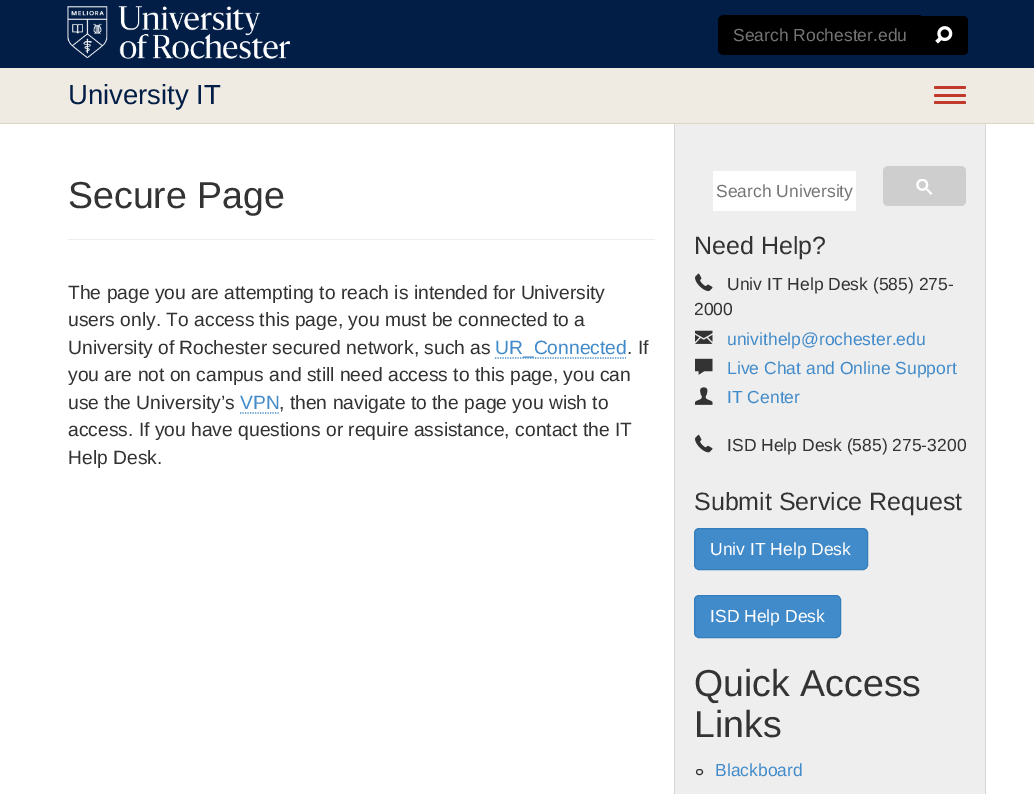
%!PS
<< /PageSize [1034 794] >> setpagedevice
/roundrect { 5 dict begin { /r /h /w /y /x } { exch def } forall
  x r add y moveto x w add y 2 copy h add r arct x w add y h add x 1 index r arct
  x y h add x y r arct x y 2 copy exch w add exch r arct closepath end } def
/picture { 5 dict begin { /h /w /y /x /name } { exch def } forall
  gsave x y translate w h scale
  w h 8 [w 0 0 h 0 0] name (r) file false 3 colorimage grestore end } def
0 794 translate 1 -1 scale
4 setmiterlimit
1 setgray
0 0 1034 794 rectfill
0.008 0.118 0.278 setrgbcolor
0 0 1034 68 rectfill
(img1.rgb) 67 6 223 53 picture
0 setgray
newpath 724 15 moveto 921 15 lineto 921 55 lineto 724 55 lineto 720.5 55 718 52.5 718 49 curveto 718 21 lineto 718 17.5 720.5 15 724 15 curveto closepath fill
/LiberationSans-Regular [17.5 0 0 -17.5 0 0] selectfont
0.459 setgray
733 41 moveto (Search Rochester.edu) show
0 setgray
newpath 920 16 moveto 963 16 lineto 966 16 968 18 968 21 curveto 968 50 lineto 968 53 966 55 963 55 curveto 920 55 lineto closepath fill
(img2.rgb) 935 26 18 18 picture
0.937 0.922 0.886 setrgbcolor
0 68 1034 55 rectfill
0.867 0.831 0.757 setrgbcolor
0 123 1034 1 rectfill
/LiberationSans-Regular [27.5 0 0 -27.5 0 0] selectfont
0.008 0.118 0.278 setrgbcolor
68 104 moveto (University IT) show
0.753 0.224 0.169 setrgbcolor
934 86 32 3 1.5 roundrect fill
934 94 32 3 1.5 roundrect fill
934 101 32 3 1.5 roundrect fill
0.933 setgray
68 239 587 1 rectfill
/LiberationSans-Regular [37.5 0 0 -37.5 0 0] selectfont
0.2 setgray
68 208 moveto (Secure Page) show
/LiberationSans-Regular [19.25 0 0 -19.25 0 0] selectfont
68 299 moveto (The page you are attempting to reach is intended for University) show
68 326 moveto (users only. To access this page, you must be connected to a) show
68 354 moveto (University of Rochester secured network, such as) show
0.259 0.545 0.792 setrgbcolor
1.2 setlinewidth
[1.25 1.25] 0 setdash
newpath 495 358 moveto 626 358 lineto stroke
495 354 moveto (UR_Connected) show
0.2 setgray
627 354 moveto (. If) show
68 381 moveto (you are not on campus and still need access to this page, you can) show
68 409 moveto (use the University’s) show
0.259 0.545 0.792 setrgbcolor
240 409 moveto (VPN) show
newpath 240 413 moveto 279 413 lineto stroke
0.2 setgray
279 409 moveto (, then navigate to the page you wish to) show
68 436 moveto (access. If you have questions or require assistance, contact the IT) show
68 464 moveto (Help Desk.) show
0.933 setgray
674 124 312 670 rectfill
0.835 setgray
newpath 984 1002 moveto 985 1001 986 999 986 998 curveto 986 124 lineto 985 125 lineto 985 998 lineto 985 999 984 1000 983 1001 curveto closepath fill
newpath 675 125 moveto 674 124 lineto 674 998 lineto 674 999 675 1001 676 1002 curveto 677 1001 lineto 676 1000 675 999 675 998 curveto closepath fill
1 setgray
713 171 143 40 rectfill
/LiberationSans-Regular [17.5 0 0 -17.5 0 0] selectfont
0.459 setgray
716 197 moveto (Search University) show
0.808 setgray
883 166 83 40 5 roundrect fill
(img3.rgb) 916 179 17 16 picture
/LiberationSans-Regular [25 0 0 -25 0 0] selectfont
0.2 setgray
694 254 moveto (Need Help?) show
(img4.rgb) 695 273 18 19 picture
/LiberationSans-Regular [17.5 0 0 -17.5 0 0] selectfont
727 290 moveto (Univ IT Help Desk \(585\) 275-) show
694 315 moveto (2000) show
(img5.rgb) 695 330 18 14 picture
0.259 0.545 0.792 setrgbcolor
727 345 moveto (univithelp@rochester.edu) show
(img6.rgb) 695 358 18 17 picture
727 374 moveto (Live Chat and Online Support) show
(img7.rgb) 695 387 18 18 picture
727 403 moveto (IT Center) show
(img8.rgb) 695 434 18 19 picture
0.2 setgray
727 451 moveto (ISD Help Desk \(585\) 275-3200) show
/LiberationSans-Regular [25 0 0 -25 0 0] selectfont
694 510 moveto (Submit Service Request) show
0.259 0.545 0.792 setrgbcolor
694.5 528.5 173 41 4.5 roundrect gsave fill grestore
0.208 0.494 0.741 setrgbcolor
1 setlinewidth
[] 0 setdash
stroke
/LiberationSans-Regular [17.5 0 0 -17.5 0 0] selectfont
1 setgray
710 555 moveto (Univ IT Help Desk) show
0.259 0.545 0.792 setrgbcolor
694.5 595.5 146 42 4.5 roundrect gsave fill grestore
0.208 0.494 0.741 setrgbcolor
stroke
1 setgray
710 622 moveto (ISD Help Desk) show
/LiberationSans-Regular [37.5 0 0 -37.5 0 0] selectfont
0.2 setgray
694 696 moveto (Quick Access) show
694 737 moveto (Links) show
696.5 769.5 6 5 2.5 roundrect stroke
/LiberationSans-Regular [17.5 0 0 -17.5 0 0] selectfont
0.259 0.545 0.792 setrgbcolor
715 776 moveto (Blackboard) show
showpage
